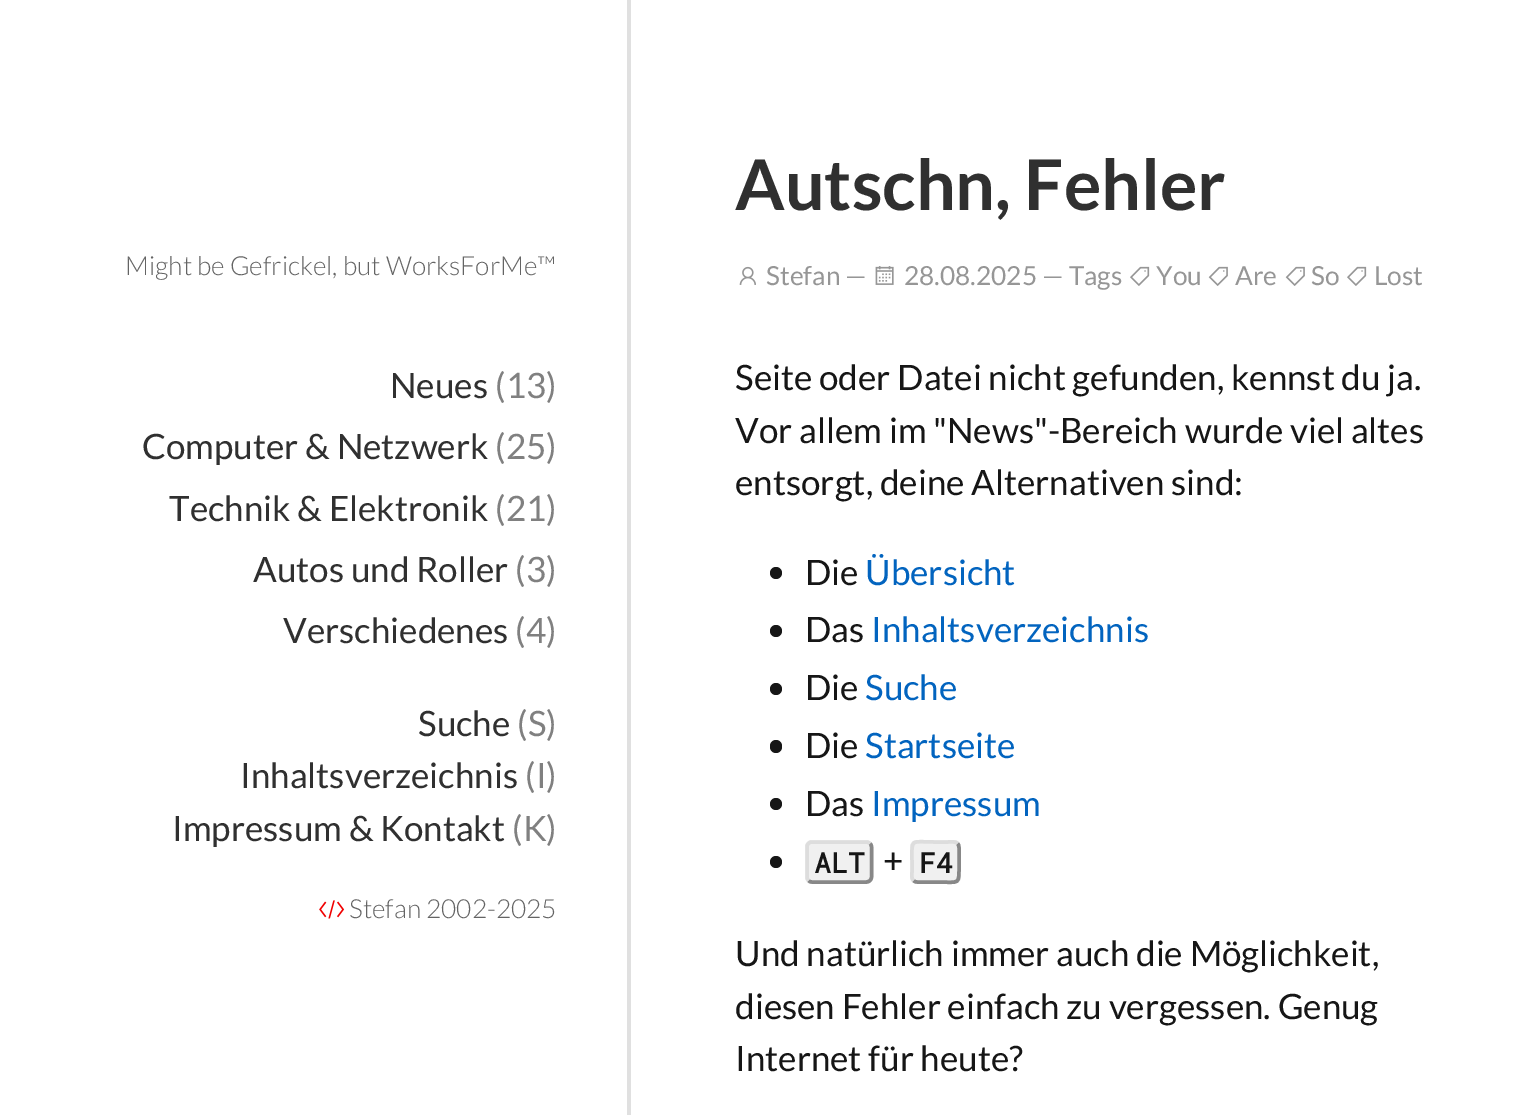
%!PS
<< /PageSize [1532 1115] >> setpagedevice
/roundrect { 5 dict begin { /r /h /w /y /x } { exch def } forall
  x r add y moveto x w add y 2 copy h add r arct x w add y h add x 1 index r arct
  x y h add x y r arct x y 2 copy exch w add exch r arct closepath end } def
/picture { 5 dict begin { /h /w /y /x /name } { exch def } forall
  gsave x y translate w h scale
  w h 8 [w 0 0 h 0 0] name (r) file false 3 colorimage grestore end } def
0 1115 translate 1 -1 scale
4 setmiterlimit
1 setgray
0 0 1532 1115 rectfill
0.878 setgray
627 0 4 1115 rectfill
/Lato-Light [26.25 0 0 -26.25 0 0] selectfont
0.392 setgray
125 275 moveto (Might be Gefrickel, but WorksForMe™) show
/Lato-Regular [35 0 0 -35 0 0] selectfont
0.188 setgray
390 398 moveto (Neues) show
0.502 setgray
495 398 moveto (\(13\)) show
0.188 setgray
142 459 moveto (Computer & Netzwerk) show
0.502 setgray
495 459 moveto (\(25\)) show
0.188 setgray
169 521 moveto (Technik & Elektronik) show
0.502 setgray
495 521 moveto (\(21\)) show
0.188 setgray
253 582 moveto (Autos und Roller) show
0.502 setgray
515 582 moveto (\(3\)) show
0.188 setgray
283 643 moveto (Verschiedenes) show
0.502 setgray
515 643 moveto (\(4\)) show
0.188 setgray
418 736 moveto (Suche) show
0.502 setgray
517 736 moveto (\(S\)) show
0.188 setgray
240 788 moveto (Inhaltsverzeichnis) show
0.502 setgray
525 788 moveto (\(I\)) show
0.188 setgray
172 841 moveto (Impressum & Kontakt) show
0.502 setgray
512 841 moveto (\(K\)) show
(img1.rgb) 319 900 26 19 picture
/Lato-Light [26.25 0 0 -26.25 0 0] selectfont
0.392 setgray
349 918 moveto (Stefan 2002-2025) show
/Lato-Bold [70 0 0 -70 0 0] selectfont
0.188 setgray
735 210 moveto (Autschn, Fehler) show
(img2.rgb) 739 266 17 19 picture
/Lato-Regular [26.25 0 0 -26.25 0 0] selectfont
0.588 setgray
766 285 moveto (Stefan —) show
(img3.rgb) 875 266 19 19 picture
904 285 moveto (28.08.2025 — Tags) show
(img4.rgb) 1130 266 20 20 picture
1156 285 moveto (You) show
(img5.rgb) 1208 266 20 20 picture
1235 285 moveto (Are) show
(img5.rgb) 1285 266 20 20 picture
1311 285 moveto (So) show
(img4.rgb) 1347 266 20 20 picture
1374 285 moveto (Lost) show
/Lato-Regular [35 0 0 -35 0 0] selectfont
0.086 setgray
735 390 moveto (Seite oder Datei nicht gefunden, kennst du ja.) show
735 443 moveto (Vor allem im "News"-Bereich wurde viel altes) show
735 495 moveto (entsorgt, deine Alternativen sind:) show
newpath 776 573 6 0 360 arc closepath fill
805 585 moveto (Die) show
0.008 0.392 0.749 setrgbcolor
865 585 moveto (Übersicht) show
0.086 setgray
newpath 776 631 6 0 360 arc closepath fill
805 642 moveto (Das) show
0.008 0.392 0.749 setrgbcolor
871 642 moveto (Inhaltsverzeichnis) show
0.086 setgray
newpath 776 689 6 0 360 arc closepath fill
805 700 moveto (Die) show
0.008 0.392 0.749 setrgbcolor
865 700 moveto (Suche) show
0.086 setgray
770 740 12 13 6 roundrect fill
805 758 moveto (Die) show
0.008 0.392 0.749 setrgbcolor
865 758 moveto (Startseite) show
0.086 setgray
newpath 776 804 6 0 360 arc closepath fill
805 816 moveto (Das) show
0.008 0.392 0.749 setrgbcolor
871 816 moveto (Impressum) show
0.086 setgray
newpath 776 862 6 0 360 arc closepath fill
0.941 setgray
805 840 68 44 7 roundrect fill
0.533 setgray
3.5 setlinewidth
newpath 870 843.5 moveto 871 844.5 871.5 845.5 871.5 847 curveto 871.5 877 lineto 871.5 878 871 879.5 870 880.5 curveto 869 881.5 867.5 882 866 882 curveto 812 882 lineto 810.5 882 809.5 881.5 808.5 880.5 curveto stroke
0.867 setgray
newpath 808.5 880.5 moveto 807.5 879.5 807 878 807 877 curveto 807 847 lineto 807 845.5 807.5 844.5 808.5 843.5 curveto 809.5 842.5 810.5 842 812 842 curveto 866 842 lineto 867.5 842 869 842.5 870 843.5 curveto stroke
/RobotoMono-Bold [28 0 0 -28 0 0] selectfont
0.086 setgray
814 873 moveto (ALT) show
/Lato-Regular [35 0 0 -35 0 0] selectfont
883 873 moveto (+) show
0.941 setgray
910 840 51 44 7 roundrect fill
0.533 setgray
newpath 957.5 843.5 moveto 959.5 845.5 959 849 959 852 curveto 959 862 lineto 959 886.5 961 882 935.5 882 curveto 923 882 lineto 920 882 916 883 913.5 880.5 curveto stroke
0.867 setgray
newpath 913.5 880.5 moveto 911 878 912 874.5 912 872 curveto 912 862 lineto 912 837.5 909.5 842 935.5 842 curveto 947.5 842 lineto 950.5 842 955 841 957.5 843.5 curveto stroke
/RobotoMono-Bold [28 0 0 -28 0 0] selectfont
0.086 setgray
919 873 moveto (F4) show
/Lato-Regular [35 0 0 -35 0 0] selectfont
735 966 moveto (Und natürlich immer auch die Möglichkeit,) show
735 1019 moveto (diesen Fehler einfach zu vergessen. Genug) show
735 1071 moveto (Internet für heute?) show
showpage
